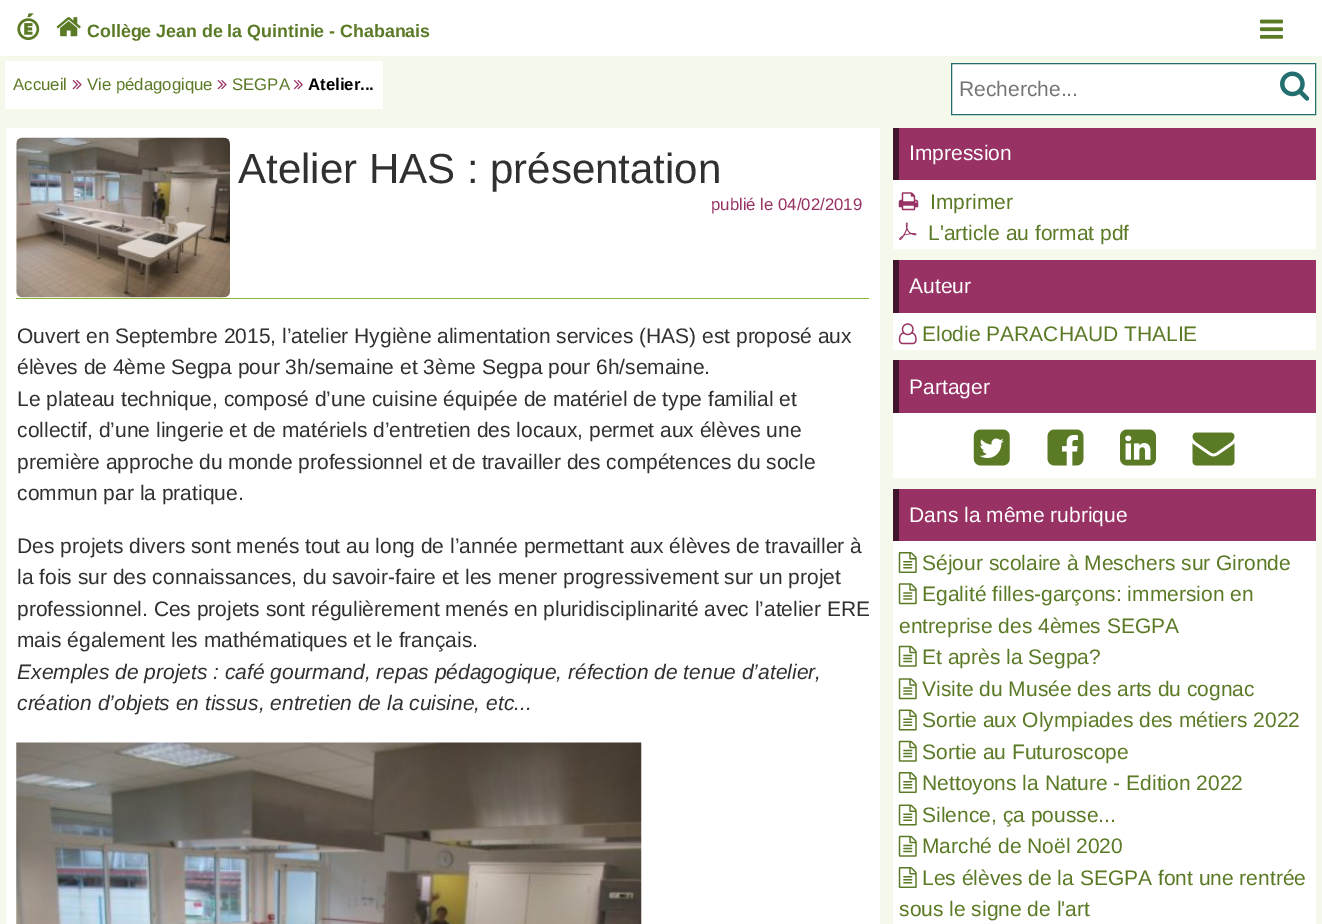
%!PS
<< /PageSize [1322 924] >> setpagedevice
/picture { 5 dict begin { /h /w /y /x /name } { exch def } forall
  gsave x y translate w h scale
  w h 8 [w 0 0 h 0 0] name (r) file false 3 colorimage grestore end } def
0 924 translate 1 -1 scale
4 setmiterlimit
0.957 0.976 0.925 setrgbcolor
0 0 1322 924 rectfill
1 setgray
0 0 1322 56 rectfill
(img1.rgb) 17 13 23 28 picture
(img2.rgb) 56 17 25 20 picture
/LiberationSans-Bold [17.8 0 0 -17.8 0 0] selectfont
0.357 0.478 0.149 setrgbcolor
87 37 moveto (Collège Jean de la Quintinie - Chabanais) show
(img3.rgb) 1260 19 23 20 picture
1 setgray
5 61 378 48 rectfill
/LiberationSans-Regular [16.75 0 0 -16.75 0 0] selectfont
0.357 0.478 0.149 setrgbcolor
13 90 moveto (Accueil) show
(img4.rgb) 72 80 10 10 picture
87 90 moveto (Vie pédagogique) show
(img4.rgb) 217 80 10 10 picture
232 90 moveto (SEGPA) show
(img5.rgb) 293 80 10 10 picture
/LiberationSans-Bold [16.75 0 0 -16.75 0 0] selectfont
0 setgray
308 90 moveto (Atelier...) show
1 setgray
newpath 951.5 63.5 moveto 1315.5 63.5 lineto 1315.5 114.5 lineto 951.5 114.5 lineto closepath gsave fill grestore
0.137 0.431 0.431 setrgbcolor
stroke
/LiberationSans-Regular [21 0 0 -21 0 0] selectfont
0.459 setgray
959 96 moveto (Recherche...) show
(img6.rgb) 1280 71 29 30 picture
1 setgray
6 128 874 796 rectfill
(img7.rgb) 16 137 214 161 picture
/LiberationSans-Regular [42 0 0 -42 0 0] selectfont
0.188 setgray
238 183 moveto (Atelier HAS : présentation) show
/LiberationSans-Regular [16.75 0 0 -16.75 0 0] selectfont
0.596 0.192 0.392 setrgbcolor
711 210 moveto (publié le 04/02/2019) show
0.537 0.722 0.227 setrgbcolor
16 298 853 1 rectfill
/LiberationSans-Regular [21 0 0 -21 0 0] selectfont
0.188 setgray
17 343 moveto (Ouvert en Septembre 2015, l’atelier Hygiène alimentation services \(HAS\) est proposé aux) show
17 374 moveto (élèves de 4ème Segpa pour 3h/semaine et 3ème Segpa pour 6h/semaine.) show
17 406 moveto (Le plateau technique, composé d’une cuisine équipée de matériel de type familial et) show
17 437 moveto (collectif, d’une lingerie et de matériels d’entretien des locaux, permet aux élèves une) show
17 469 moveto (première approche du monde professionnel et de travailler des compétences du socle) show
17 500 moveto (commun par la pratique.) show
17 553 moveto (Des projets divers sont menés tout au long de l’année permettant aux élèves de travailler à) show
17 584 moveto (la fois sur des connaissances, du savoir-faire et les mener progressivement sur un projet) show
17 616 moveto (professionnel. Ces projets sont régulièrement menés en pluridisciplinarité avec l’atelier ERE) show
17 647 moveto (mais également les mathématiques et le français.) show
/LiberationSans-Italic [21 0 0 -21 0 0] selectfont
17 679 moveto (Exemples de projets : café gourmand, repas pédagogique, réfection de tenue d’atelier,) show
17 710 moveto (création d’objets en tissus, entretien de la cuisine, etc...) show
(img8.rgb) 16 742 626 182 picture
1 setgray
893 180 423 69 rectfill
0.596 0.192 0.392 setrgbcolor
899 128 417 52 rectfill
0.255 0.082 0.169 setrgbcolor
893 128 6 52 rectfill
/LiberationSans-Regular [21 0 0 -21 0 0] selectfont
1 setgray
909 160 moveto (Impression) show
(img9.rgb) 898 192 21 19 picture
0.357 0.478 0.149 setrgbcolor
930 209 moveto (Imprimer) show
(img10.rgb) 899 222 18 18 picture
928 240 moveto (L'article au format pdf) show
1 setgray
893 313 423 37 rectfill
0.596 0.192 0.392 setrgbcolor
899 260 417 53 rectfill
0.255 0.082 0.169 setrgbcolor
893 260 6 53 rectfill
1 setgray
909 293 moveto (Auteur) show
(img11.rgb) 898 323 19 22 picture
0.357 0.478 0.149 setrgbcolor
922 341 moveto (Elodie PARACHAUD THALIE) show
1 setgray
893 413 423 65 rectfill
0.596 0.192 0.392 setrgbcolor
899 360 417 53 rectfill
0.255 0.082 0.169 setrgbcolor
893 360 6 53 rectfill
1 setgray
909 394 moveto (Partager) show
(img12.rgb) 973 429 37 37 picture
(img13.rgb) 1047 429 37 37 picture
(img14.rgb) 1120 429 36 37 picture
(img15.rgb) 1192 432 43 34 picture
893 541 423 383 rectfill
0.596 0.192 0.392 setrgbcolor
899 489 417 52 rectfill
0.255 0.082 0.169 setrgbcolor
893 489 6 52 rectfill
1 setgray
909 522 moveto (Dans la même rubrique) show
(img16.rgb) 898 552 19 21 picture
0.357 0.478 0.149 setrgbcolor
922 570 moveto (Séjour scolaire à Meschers sur Gironde) show
(img17.rgb) 898 583 19 22 picture
922 601 moveto (Egalité filles-garçons: immersion en) show
899 633 moveto (entreprise des 4èmes SEGPA) show
(img18.rgb) 898 645 19 22 picture
922 664 moveto (Et après la Segpa?) show
(img17.rgb) 898 678 19 22 picture
922 696 moveto (Visite du Musée des arts du cognac) show
(img19.rgb) 898 709 19 22 picture
922 727 moveto (Sortie aux Olympiades des métiers 2022) show
(img18.rgb) 898 740 19 22 picture
922 759 moveto (Sortie au Futuroscope) show
(img16.rgb) 898 772 19 21 picture
922 790 moveto (Nettoyons la Nature - Edition 2022) show
(img19.rgb) 898 804 19 22 picture
922 822 moveto (Silence, ça pousse...) show
(img18.rgb) 898 835 19 22 picture
922 853 moveto (Marché de Noël 2020) show
(img16.rgb) 898 867 19 21 picture
922 885 moveto (Les élèves de la SEGPA font une rentrée) show
899 916 moveto (sous le signe de l'art) show
showpage
